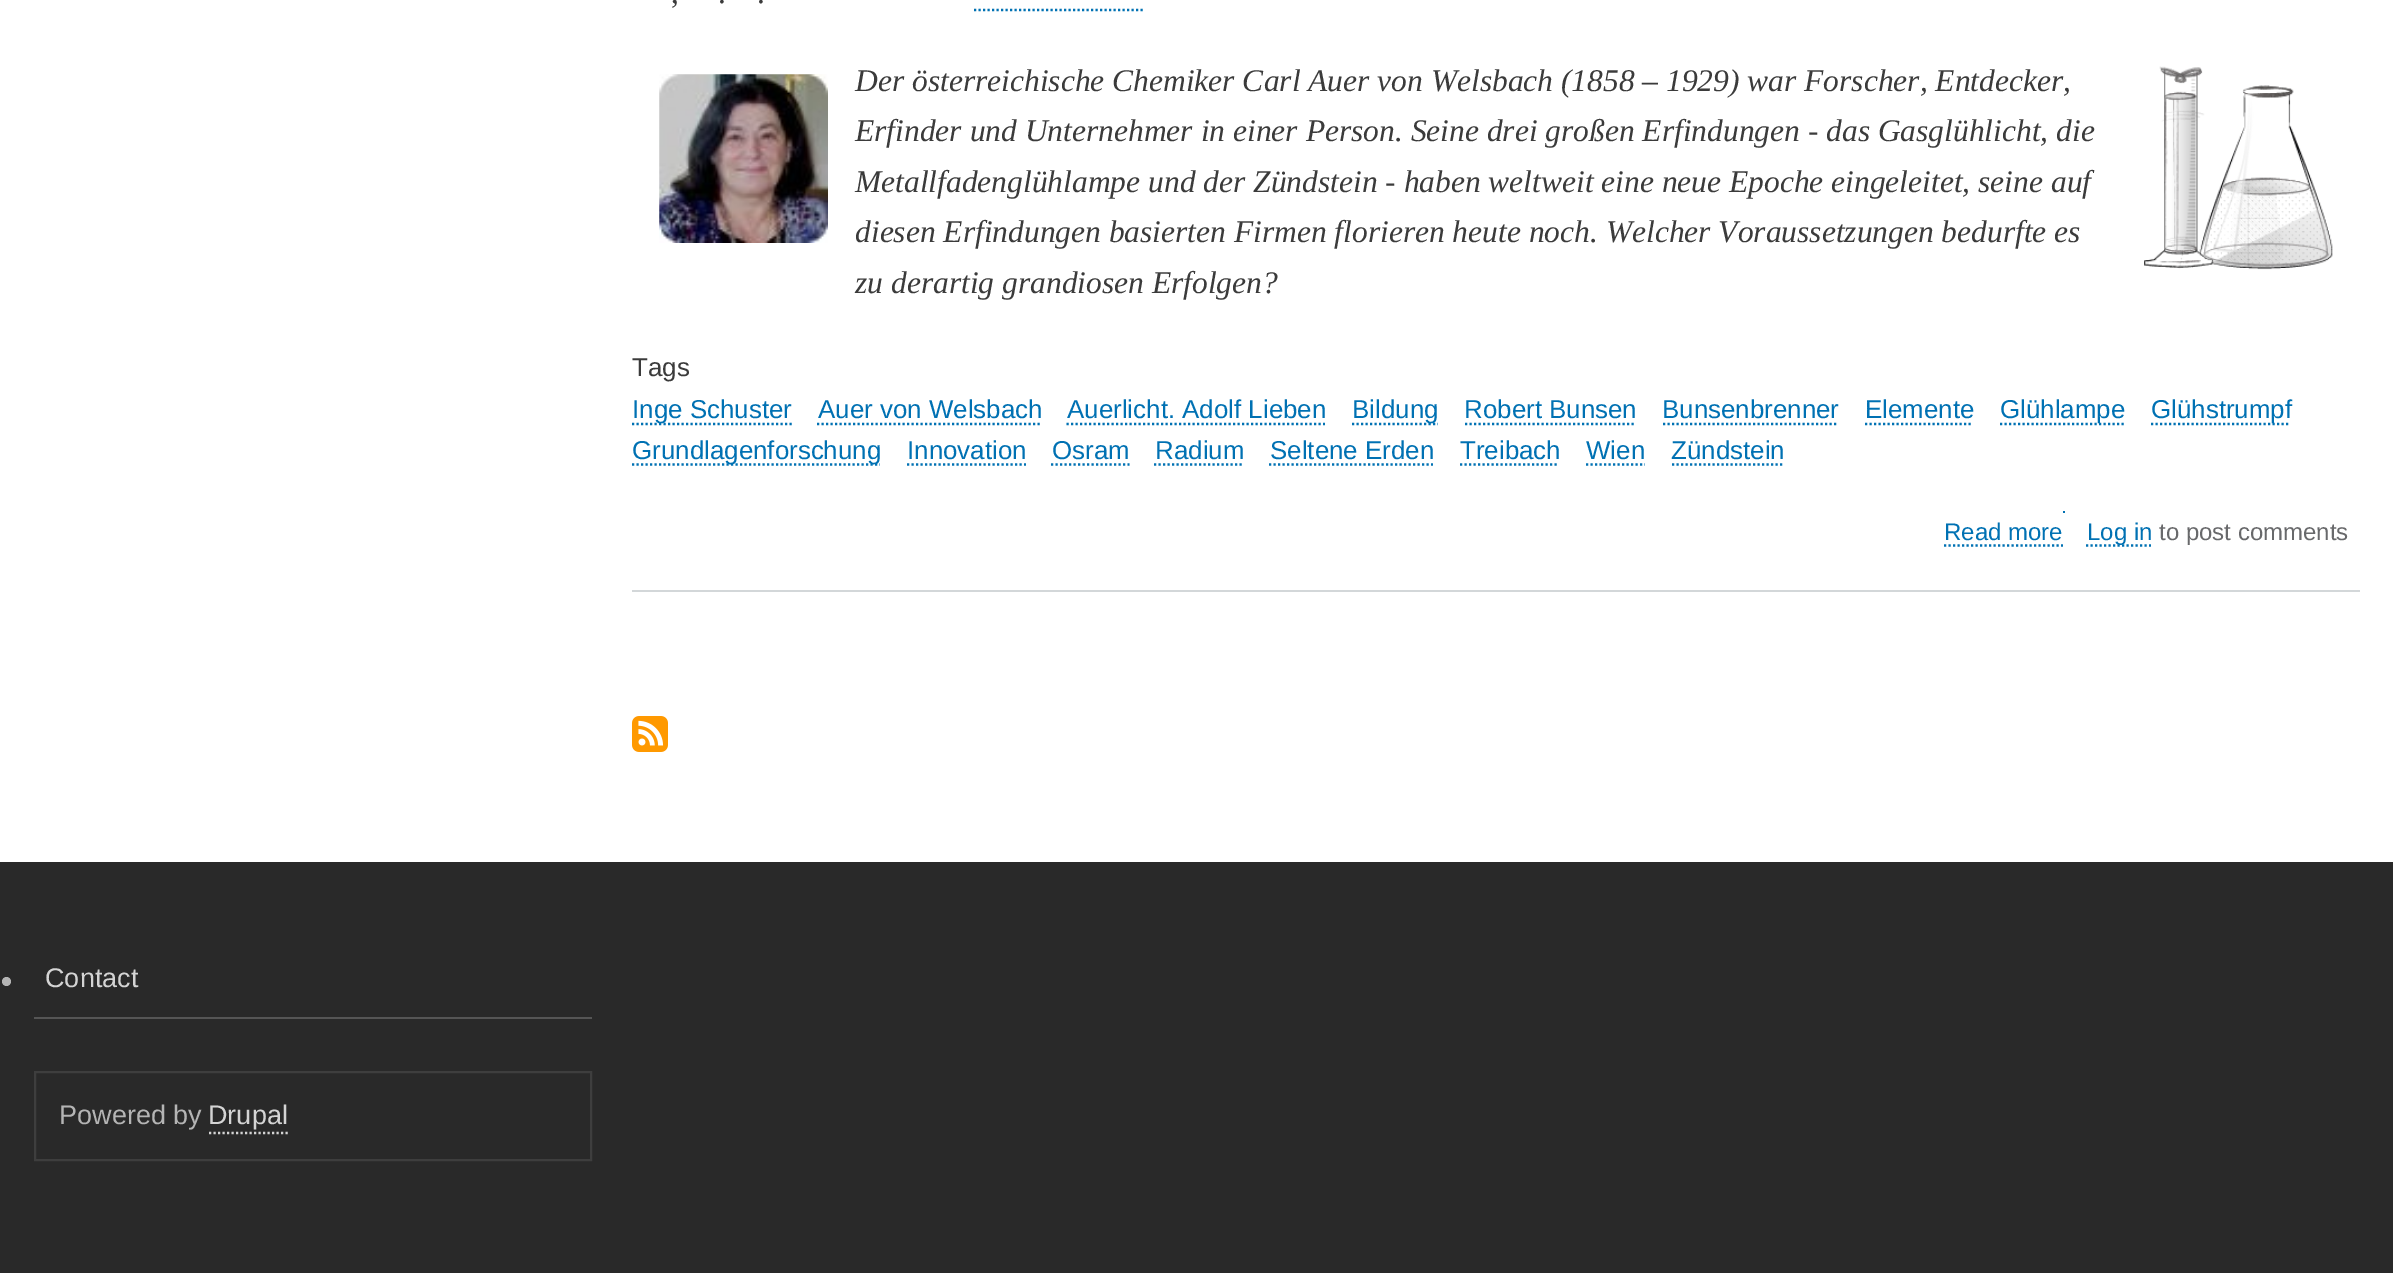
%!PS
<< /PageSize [2393 1273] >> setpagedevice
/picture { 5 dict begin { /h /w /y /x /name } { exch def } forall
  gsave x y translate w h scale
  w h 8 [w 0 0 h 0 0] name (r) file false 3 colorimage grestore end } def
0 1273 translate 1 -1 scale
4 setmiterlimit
1 setgray
0 0 2393 1273 rectfill
0.827 0.843 0.851 setrgbcolor
632 590 1728 2 rectfill
/LiberationSerif-Regular [31.5 0 0 -31.5 0 0] selectfont
0.231 setgray
671 3 moveto (,) show
718 3 moveto (.) show
757 3 moveto (.) show
0 0.443 0.702 setrgbcolor
2.2 setlinewidth
[2.25 2.25] 0 setdash
newpath 974 10 moveto 1145 10 lineto stroke
(img1.rgb) 659 74 169 169 picture
(img2.rgb) 2144 66 189 204 picture
/LiberationSerif-Italic [31.5 0 0 -31.5 0 0] selectfont
0.231 setgray
855 91 moveto (Der österreichische Chemiker Carl Auer von Welsbach \(1858 – 1929\) war Forscher, Entdecker,) show
855 141 moveto (Erfinder und Unternehmer in einer Person. Seine drei großen Erfindungen - das Gasglühlicht, die) show
855 192 moveto (Metallfadenglühlampe und der Zündstein - haben weltweit eine neue Epoche eingeleitet, seine auf) show
855 242 moveto (diesen Erfindungen basierten Firmen florieren heute noch. Welcher Voraussetzungen bedurfte es) show
855 293 moveto (zu derartig grandiosen Erfolgen?) show
/LiberationSans-Regular [25.9 0 0 -25.9 0 0] selectfont
632 376 moveto (Tags) show
0 0.443 0.702 setrgbcolor
newpath 632 424 moveto 792 424 lineto stroke
632 418 moveto (Inge Schuster) show
818 418 moveto (Auer von Welsbach) show
newpath 817 424 moveto 1042 424 lineto stroke
1067 418 moveto (Auerlicht. Adolf Lieben) show
newpath 1066.5 424 moveto 1325 424 lineto stroke
newpath 1352 424 moveto 1438 424 lineto stroke
1352 418 moveto (Bildung) show
1464 418 moveto (Robert Bunsen) show
newpath 1465 424 moveto 1636 424 lineto stroke
1662 418 moveto (Bunsenbrenner) show
newpath 1663 424 moveto 1838 424 lineto stroke
1865 418 moveto (Elemente) show
newpath 1865 424 moveto 1973 424 lineto stroke
newpath 2000 424 moveto 2124 424 lineto stroke
2000 418 moveto (Glühlampe) show
newpath 2151 424 moveto 2290.5 424 lineto stroke
2151 418 moveto (Glühstrumpf) show
newpath 632 464.5 moveto 880 464.5 lineto stroke
632 459 moveto (Grundlagenforschung) show
907 459 moveto (Innovation) show
newpath 907 464.5 moveto 1026 464.5 lineto stroke
1052 459 moveto (Osram) show
newpath 1051 464.5 moveto 1129.5 464.5 lineto stroke
1155 459 moveto (Radium) show
newpath 1154 464.5 moveto 1244 464.5 lineto stroke
1270 459 moveto (Seltene Erden) show
newpath 1269 464.5 moveto 1433 464.5 lineto stroke
1460 459 moveto (Treibach) show
newpath 1460 464.5 moveto 1559 464.5 lineto stroke
1586 459 moveto (Wien) show
newpath 1586 464.5 moveto 1645 464.5 lineto stroke
1671 459 moveto (Zündstein) show
newpath 1672 464.5 moveto 1784 464.5 lineto stroke
/LiberationSans-Regular [24 0 0 -24 0 0] selectfont
1944 540 moveto (Read more) show
newpath 1944 545.5 moveto 2063 545.5 lineto stroke
2063 511 2 2 rectfill
newpath 2086 545.5 moveto 2151 545.5 lineto stroke
2087 540 moveto (Log in) show
0.408 0.412 0.42 setrgbcolor
2159 540 moveto (to post comments) show
(img3.rgb) 632 716 36 36 picture
0.161 setgray
0 862 2393 411 rectfill
0.706 setgray
newpath 6.5 981.5 4.5 0 360 arc closepath fill
0.333 setgray
34 1017 558 2 rectfill
/LiberationSans-Regular [27 0 0 -27 0 0] selectfont
0.831 setgray
45 987 moveto (Contact) show
0.243 setgray
2 setlinewidth
[] 0 setdash
35 1072 556 88 rectstroke
0.706 setgray
59 1124 moveto (Powered by) show
0.831 setgray
208 1124 moveto (Drupal) show
2.2 setlinewidth
[2.25 2.25] 0 setdash
newpath 209 1133 moveto 288 1133 lineto stroke
showpage
